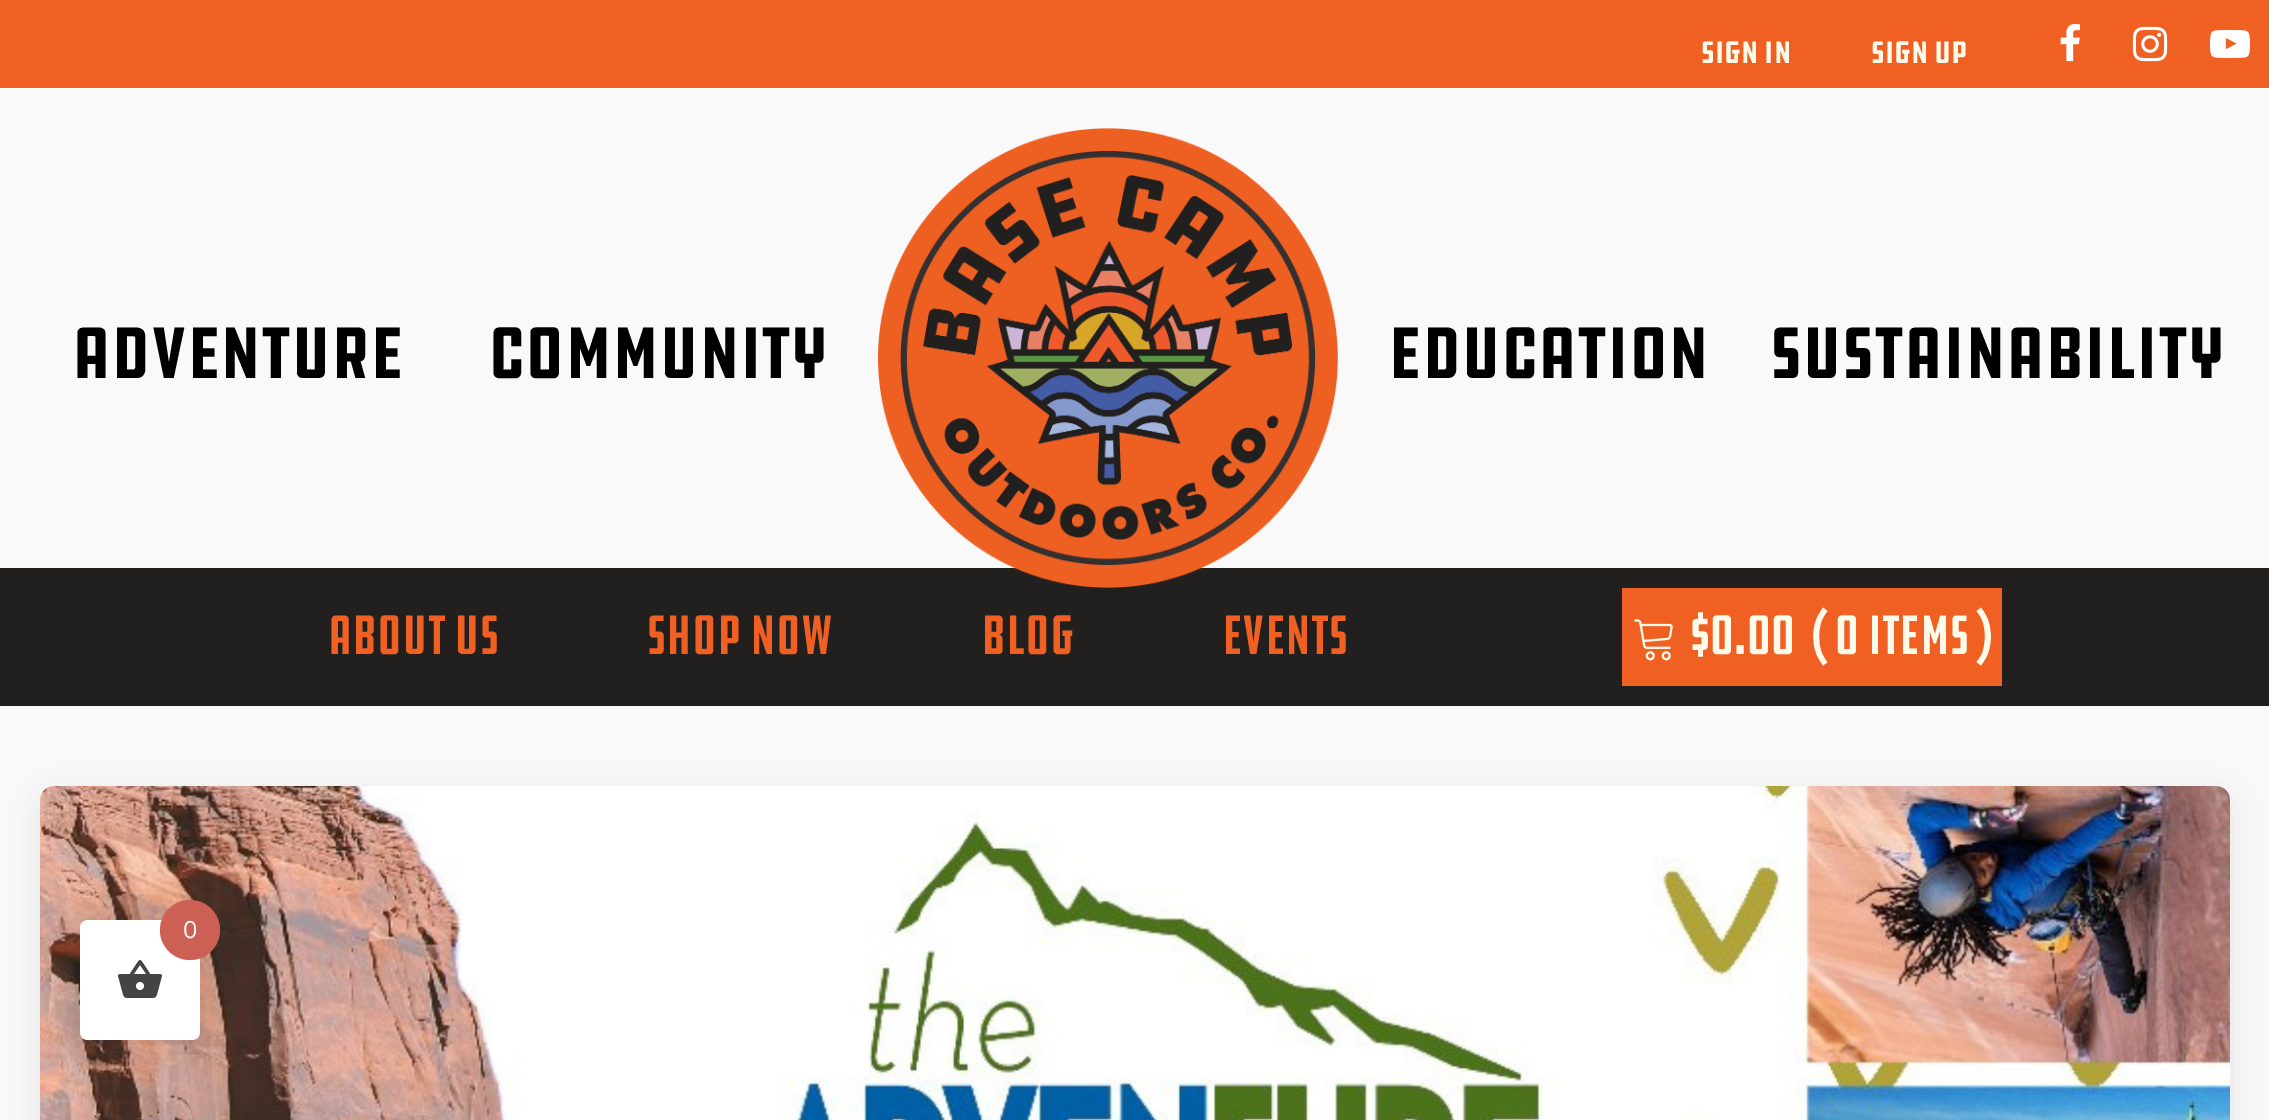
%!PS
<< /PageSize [2269 1120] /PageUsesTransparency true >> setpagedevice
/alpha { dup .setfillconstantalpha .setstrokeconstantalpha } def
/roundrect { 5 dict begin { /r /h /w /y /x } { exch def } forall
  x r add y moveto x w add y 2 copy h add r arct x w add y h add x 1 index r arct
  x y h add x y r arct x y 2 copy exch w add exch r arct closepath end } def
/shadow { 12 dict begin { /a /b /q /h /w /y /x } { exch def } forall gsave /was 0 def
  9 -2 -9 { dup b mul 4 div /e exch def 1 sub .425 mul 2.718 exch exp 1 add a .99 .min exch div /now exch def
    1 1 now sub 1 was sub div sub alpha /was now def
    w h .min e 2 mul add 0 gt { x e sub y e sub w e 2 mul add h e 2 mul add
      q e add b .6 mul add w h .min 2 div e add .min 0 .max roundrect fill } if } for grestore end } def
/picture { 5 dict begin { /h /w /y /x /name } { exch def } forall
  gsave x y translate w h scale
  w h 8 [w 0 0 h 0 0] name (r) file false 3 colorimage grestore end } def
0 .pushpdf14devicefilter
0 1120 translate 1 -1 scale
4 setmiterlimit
0.976 setgray
0 0 2269 1120 rectfill
0.941 0.376 0.133 setrgbcolor
0 0 2269 88 rectfill
/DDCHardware-Regular [32 0 0 -32 0 0] selectfont
1 0.98 0.914 setrgbcolor
1701 63 moveto (SIGN IN) show
1871 63 moveto (SIGN UP) show
(img1.rgb) 2060 24 20 38 picture
(img2.rgb) 2132 26 36 36 picture
(img3.rgb) 2210 29 40 30 picture
/DDCHardware-Regular [74.75 0 0 -74.75 0 0] selectfont
0 setgray
72 378 moveto (Adventure) show
488 378 moveto (Community) show
0.133 0.122 0.122 setrgbcolor
0 568 2269 138 rectfill
(img4.rgb) 878 128 460 460 picture
0 setgray
1388 378 moveto (Education) show
1770 378 moveto (Sustainability) show
/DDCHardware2-Regular [57 0 0 -57 0 0] selectfont
0.941 0.376 0.133 setrgbcolor
328 654 moveto (ABOUT US) show
647 654 moveto (SHOP NOW) show
981 654 moveto (BLOG) show
1222 654 moveto (EVENTS) show
1622 588 380 98 rectfill
(img5.rgb) 1634 619 39 42 picture
1 0.98 0.914 setrgbcolor
1690 654 moveto ($0.00) show
1811 654 moveto (\( 0 items \)) show
0 setgray
40 796 2190 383 14 15 0.08 shadow
(img6.rgb) 40 786 2190 334 picture
80 920 120 120 8 20 0.15 shadow
1 setgray
80 920 120 120 8 roundrect fill
0.8 0.376 0.333 setrgbcolor
newpath 190 930 30 0 360 arc closepath fill
/Nunito-Regular [24 0 0 -24 0 0] selectfont
1 setgray
183 938 moveto (0) show
(img7.rgb) 118 960 44 38 picture
.poppdf14devicefilter showpage
